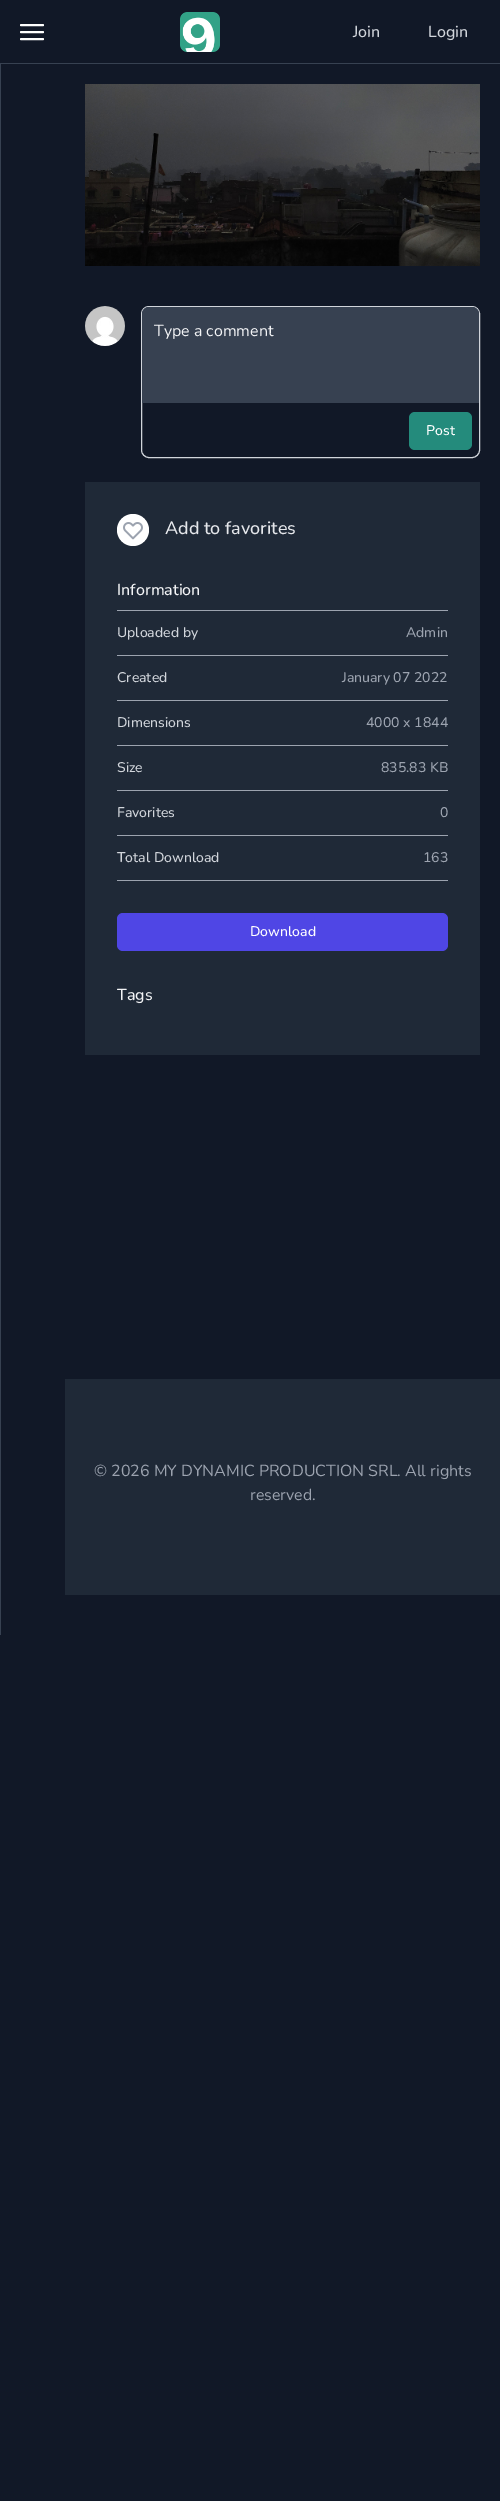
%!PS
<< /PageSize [500 2501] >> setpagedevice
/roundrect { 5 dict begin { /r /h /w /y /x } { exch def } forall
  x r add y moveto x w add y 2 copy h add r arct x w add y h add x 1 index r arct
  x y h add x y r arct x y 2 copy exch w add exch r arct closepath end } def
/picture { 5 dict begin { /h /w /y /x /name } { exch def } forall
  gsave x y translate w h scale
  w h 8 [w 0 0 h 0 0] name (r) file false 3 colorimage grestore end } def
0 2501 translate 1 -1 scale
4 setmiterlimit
0.067 0.094 0.153 setrgbcolor
0 0 500 2501 rectfill
0.216 0.255 0.318 setrgbcolor
0 63 500 1 rectfill
1 setgray
2 setlinewidth
1 setlinecap
1 setlinejoin
newpath 21 25 moveto 43 25 lineto 21 32 moveto 43 32 lineto 21 39 moveto 43 39 lineto stroke
(img1.rgb) 180 12 40 40 picture
/Nunito-Medium [16 0 0 -16 0 0] selectfont
0.82 0.835 0.859 setrgbcolor
353 37 moveto (Join) show
428 37 moveto (Login) show
0.216 0.255 0.318 setrgbcolor
0 64 1 1571 rectfill
(img2.rgb) 85 84 395 182 picture
(img3.rgb) 85 306 40 40 picture
0.82 0.835 0.859 setrgbcolor
1 setlinewidth
0 setlinecap
0 setlinejoin
141.5 306.5 338 151 7.5 roundrect stroke
0.216 0.255 0.318 setrgbcolor
newpath 149 307 moveto 472 307 lineto 476 307 479 310 479 314 curveto 479 403 lineto 142 403 lineto 142 314 lineto 142 310 145 307 149 307 curveto closepath fill
/Nunito-Regular [16 0 0 -16 0 0] selectfont
0.953 0.957 0.965 setrgbcolor
154 336 moveto (Type a comment) show
0.141 0.545 0.486 setrgbcolor
409 412 63 38 6 roundrect fill
/Nunito-Medium [14 0 0 -14 0 0] selectfont
1 setgray
426 435 moveto (Post) show
0.122 0.161 0.216 setrgbcolor
85 482 395 573 rectfill
1 setgray
newpath 133 530 16 0 360 arc closepath fill
(img4.rgb) 123 522 20 18 picture
/Nunito-Medium [18 0 0 -18 0 0] selectfont
0.898 0.906 0.922 setrgbcolor
165 534 moveto (Add to favorites) show
/Nunito-Medium [16 0 0 -16 0 0] selectfont
0.953 0.957 0.965 setrgbcolor
117 595 moveto (Information) show
0.612 0.639 0.686 setrgbcolor
117 610 331 1 rectfill
117 880 331 1 rectfill
/Nunito-Medium [14 0 0 -14 0 0] selectfont
0.82 0.835 0.859 setrgbcolor
117 637 moveto (Uploaded by) show
0.612 0.639 0.686 setrgbcolor
406 637 moveto (Admin) show
117 655 331 1 rectfill
0.82 0.835 0.859 setrgbcolor
117 682 moveto (Created) show
0.612 0.639 0.686 setrgbcolor
342 682 moveto (January 07 2022) show
117 700 331 1 rectfill
0.82 0.835 0.859 setrgbcolor
117 727 moveto (Dimensions) show
0.612 0.639 0.686 setrgbcolor
366 727 moveto (4000 x 1844) show
117 745 331 1 rectfill
0.82 0.835 0.859 setrgbcolor
117 772 moveto (Size) show
0.612 0.639 0.686 setrgbcolor
381 772 moveto (835.83 KB) show
117 790 331 1 rectfill
0.82 0.835 0.859 setrgbcolor
117 817 moveto (Favorites) show
0.612 0.639 0.686 setrgbcolor
440 817 moveto (0) show
117 835 331 1 rectfill
0.82 0.835 0.859 setrgbcolor
117 862 moveto (Total Download) show
0.612 0.639 0.686 setrgbcolor
423 862 moveto (163) show
0.31 0.275 0.898 setrgbcolor
117 913 331 38 6 roundrect fill
1 setgray
250 936 moveto (Download) show
/Nunito-Medium [16 0 0 -16 0 0] selectfont
0.953 0.957 0.965 setrgbcolor
117 1000 moveto (Tags) show
0.122 0.161 0.216 setrgbcolor
65 1379 435 216 rectfill
/Nunito-Regular [16 0 0 -16 0 0] selectfont
0.612 0.639 0.686 setrgbcolor
94 1476 moveto (© 2026 MY DYNAMIC PRODUCTION SRL. All rights) show
250 1500 moveto (reserved.) show
showpage
